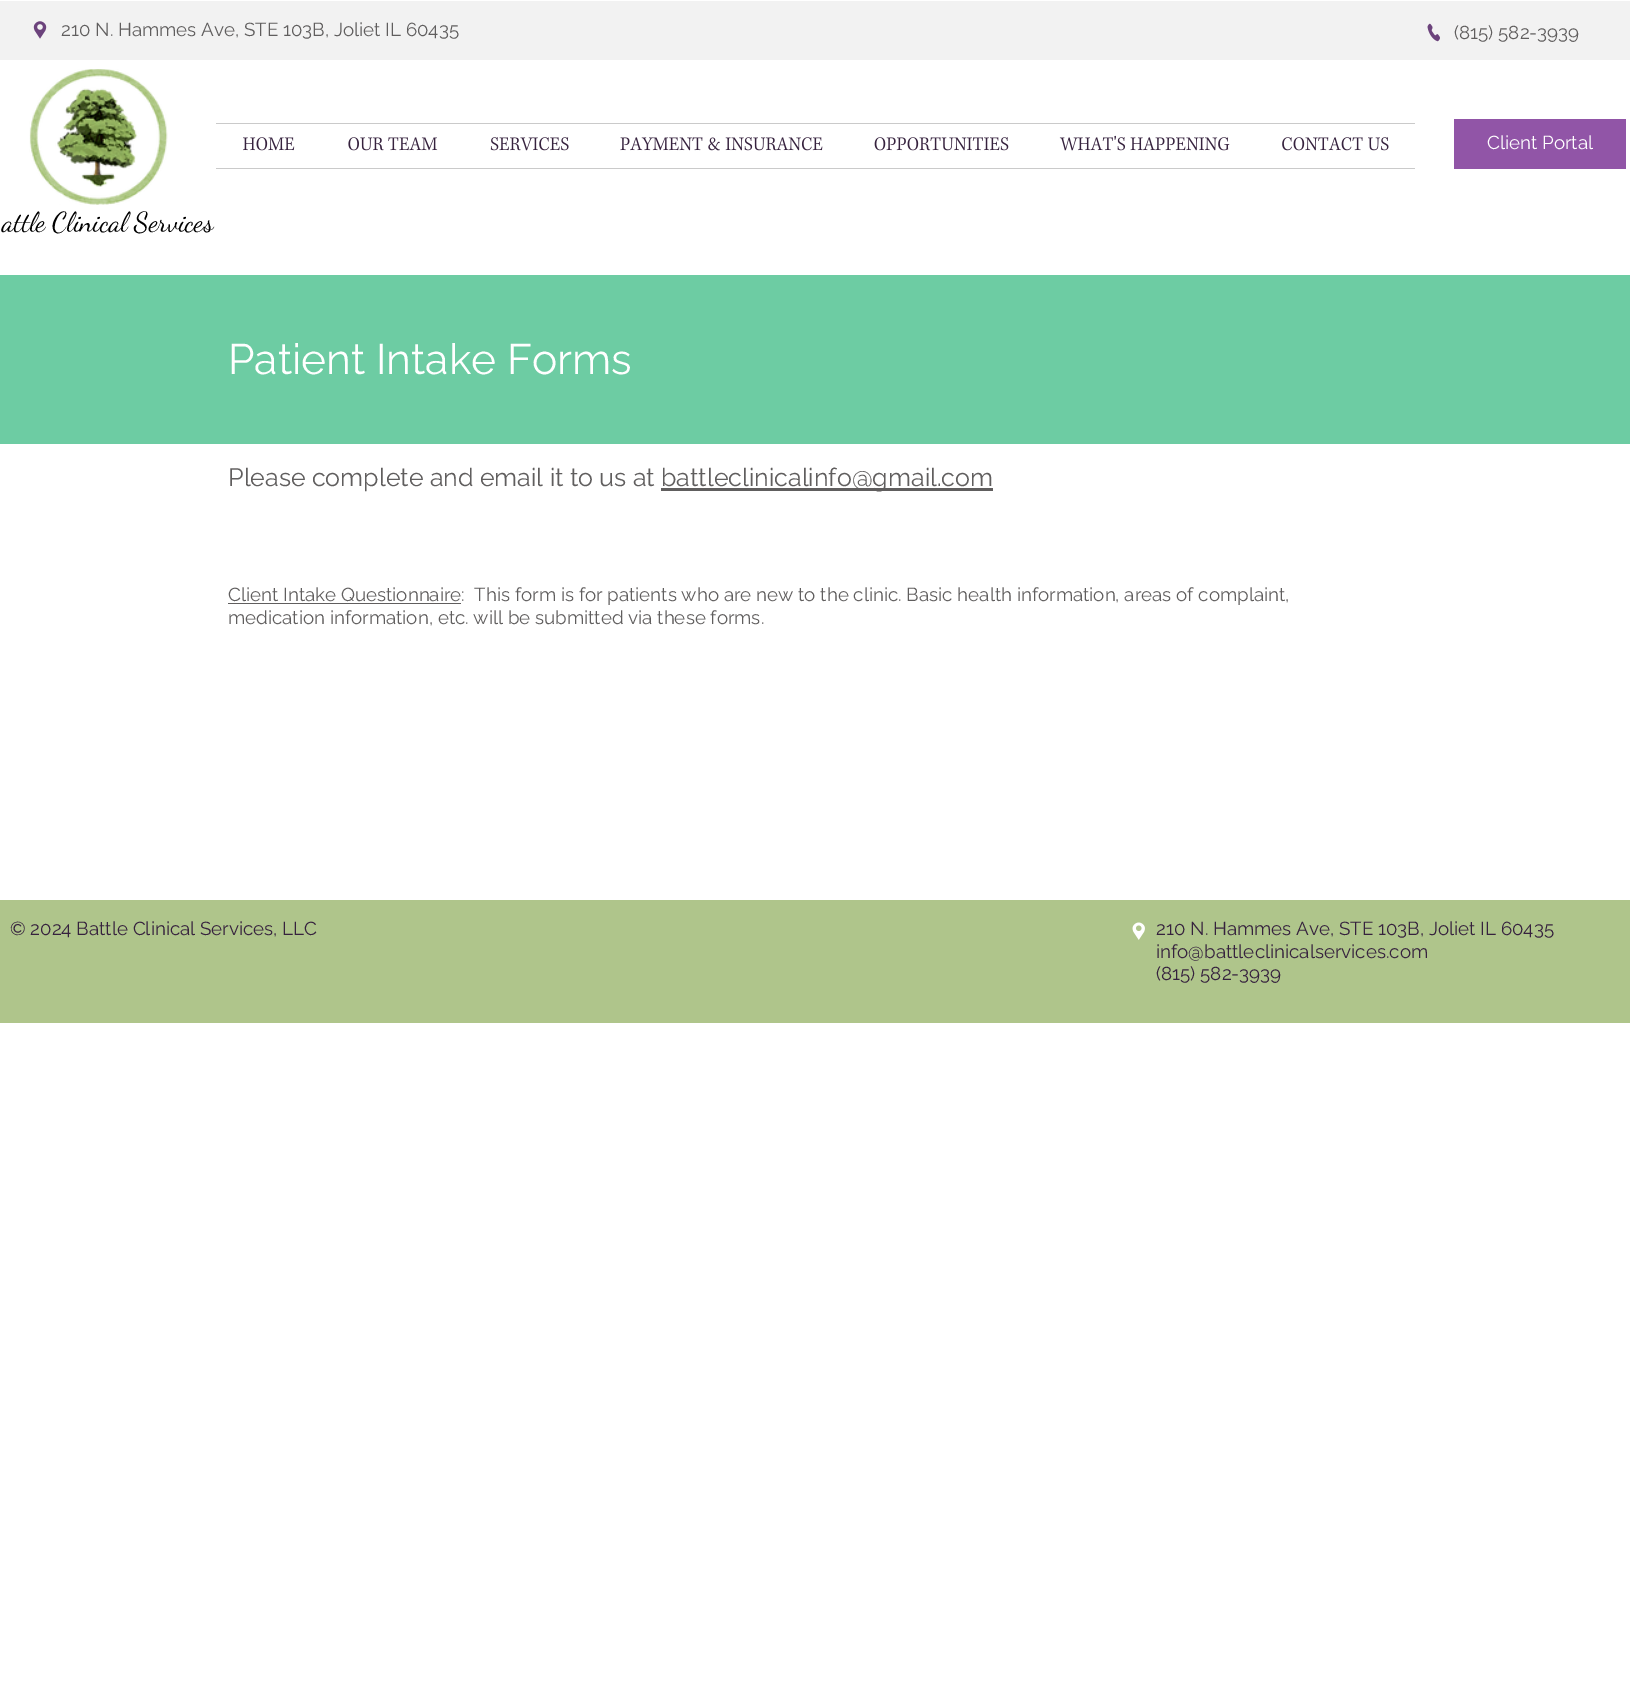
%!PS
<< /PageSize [1630 1697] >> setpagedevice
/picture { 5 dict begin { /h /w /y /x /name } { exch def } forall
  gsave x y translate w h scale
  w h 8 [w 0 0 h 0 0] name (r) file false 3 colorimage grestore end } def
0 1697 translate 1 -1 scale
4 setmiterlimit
1 setgray
0 0 1630 1697 rectfill
0.949 setgray
0 1 1630 59 rectfill
(img1.rgb) 33 21 14 18 picture
/Raleway-Regular [18.75 0 0 -18.75 0 0] selectfont
0.376 0.369 0.369 setrgbcolor
61 36 moveto (210 N. Hammes Ave, STE 103B, Joliet IL 60435) show
(img2.rgb) 1427 23 13 19 picture
1454 39 moveto (\(815\) 582-3939) show
(img3.rgb) 29 69 139 136 picture
0.792 setgray
216 123 1199 1 rectfill
216 168 1199 1 rectfill
(img4.rgb) 243 137 52 14 picture
(img5.rgb) 348 137 90 14 picture
(img6.rgb) 490 137 79 14 picture
(img7.rgb) 620 137 203 14 picture
(img8.rgb) 874 137 135 14 picture
(img9.rgb) 1059 135 171 16 picture
(img10.rgb) 1282 137 107 14 picture
0.569 0.333 0.655 setrgbcolor
1454 119 172 50 rectfill
1 setgray
1487 149 moveto (Client Portal) show
/DancingScript-Regular [27.5 0 0 -27.5 0 0] selectfont
0 setgray
2 231 moveto (attle Clinical Services) show
0.427 0.8 0.639 setrgbcolor
0 275 1630 169 rectfill
/Raleway-Regular [42.5 0 0 -42.5 0 0] selectfont
1 setgray
228 374 moveto (Patient Intake Forms) show
/Raleway-Regular [25 0 0 -25 0 0] selectfont
0.376 0.369 0.369 setrgbcolor
228 486 moveto (Please complete and email it to us at) show
661 488 332 3 rectfill
661 486 moveto (battleclinicalinfo@gmail.com) show
228 603 233 1 rectfill
/Raleway-Regular [18.75 0 0 -18.75 0 0] selectfont
228 601 moveto (Client Intake Questionnaire:  This form is for patients who are new to the clinic. Basic health information, areas of complaint,) show
228 624 moveto (medication information, etc. will be submitted via these forms.) show
0.686 0.773 0.545 setrgbcolor
0 900 1630 123 rectfill
0.212 0.133 0.243 setrgbcolor
10 935 moveto (© 2024 Battle Clinical Services, LLC) show
(img11.rgb) 1132 922 13 18 picture
1156 935 moveto (210 N. Hammes Ave, STE 103B, Joliet IL 60435) show
1156 958 moveto (info@battleclinicalservices.com) show
1156 980 moveto (\(815\) 582-3939) show
showpage
